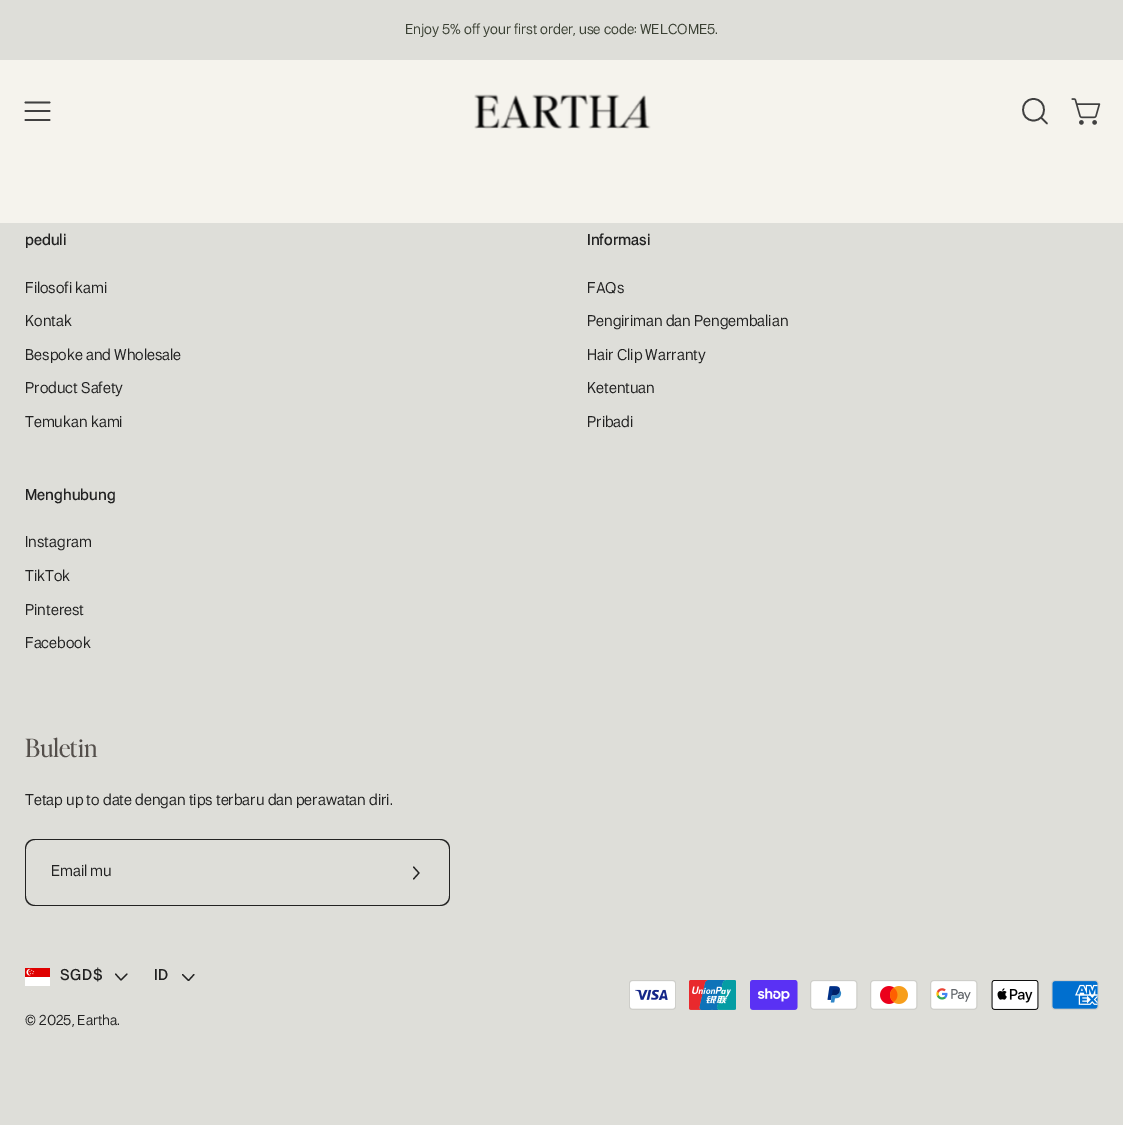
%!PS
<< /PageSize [1123 1125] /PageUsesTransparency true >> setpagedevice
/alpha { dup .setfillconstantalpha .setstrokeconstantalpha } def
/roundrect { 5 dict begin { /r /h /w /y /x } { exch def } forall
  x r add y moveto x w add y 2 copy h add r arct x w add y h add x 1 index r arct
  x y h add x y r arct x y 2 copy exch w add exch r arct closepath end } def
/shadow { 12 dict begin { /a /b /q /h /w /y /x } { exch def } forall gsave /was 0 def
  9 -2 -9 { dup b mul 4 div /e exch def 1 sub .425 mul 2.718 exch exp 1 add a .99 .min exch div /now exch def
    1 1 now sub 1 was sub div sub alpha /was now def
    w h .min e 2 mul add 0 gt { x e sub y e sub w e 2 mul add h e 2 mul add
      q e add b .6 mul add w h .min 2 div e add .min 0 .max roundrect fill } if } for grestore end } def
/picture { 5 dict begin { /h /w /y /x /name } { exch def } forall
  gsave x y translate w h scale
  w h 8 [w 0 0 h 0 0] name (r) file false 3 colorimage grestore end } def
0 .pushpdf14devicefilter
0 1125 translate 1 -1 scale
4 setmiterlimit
0.871 0.871 0.851 setrgbcolor
0 0 1123 1125 rectfill
/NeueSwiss-Medium [15 0 0 -15 0 0] selectfont
0.227 0.251 0.2 setrgbcolor
405 34 moveto (Enjoy 5% off your first order, use code: WELCOME5.) show
0.871 0.871 0.851 setrgbcolor
13 206 1098 35 0 15.5 1 shadow
0.961 0.953 0.929 setrgbcolor
0 60 1123 163 rectfill
0.251 setgray
1.8 setlinewidth
1 setlinecap
1 setlinejoin
newpath 25.5 111 moveto 49.5 111 lineto 25.5 102.5 moveto 49.5 102.5 lineto 25.5 120 moveto 49.5 120 lineto stroke
(img1.rgb) 474 94 177 35 picture
1.7 setlinewidth
newpath 1033.5 120.5 moveto 1047.5 120.5 1047.5 99 1033.5 99 curveto 1019.5 99 1019.5 120.5 1033.5 120.5 curveto closepath 1041 117.5 moveto 1047 123.5 lineto stroke
(img2.rgb) 1071 98 30 27 picture
/NeueSwiss-SemiBold [16.25 0 0 -16.25 0 0] selectfont
0.133 setgray
25 245 moveto (peduli) show
/NeueSwiss-Medium [16.25 0 0 -16.25 0 0] selectfont
25 293 moveto (Filosofi kami) show
25 326 moveto (Kontak) show
25 360 moveto (Bespoke and Wholesale) show
25 393 moveto (Product Safety) show
25 427 moveto (Temukan kami) show
/NeueSwiss-SemiBold [16.25 0 0 -16.25 0 0] selectfont
587 245 moveto (Informasi) show
gsave
588 276 511 160 rectclip
/NeueSwiss-Medium [16.25 0 0 -16.25 0 0] selectfont
587 293 moveto (FAQs) show
587 326 moveto (Pengiriman dan Pengembalian) show
587 360 moveto (Hair Clip Warranty) show
587 393 moveto (Ketentuan) show
587 427 moveto (Pribadi) show
grestore
25 500 moveto (Menghubung) show
/NeueSwiss-Medium [16.25 0 0 -16.25 0 0] selectfont
25 547 moveto (Instagram) show
25 581 moveto (TikTok) show
25 615 moveto (Pinterest) show
25 648 moveto (Facebook) show
/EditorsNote-Regular [25 0 0 -25 0 0] selectfont
0.329 0.31 0.294 setrgbcolor
25 757 moveto (Buletin) show
/NeueSwiss-Medium [16.25 0 0 -16.25 0 0] selectfont
0.133 setgray
25 805 moveto (Tetap up to date dengan tips terbaru dan perawatan diri.) show
newpath 35 839 moveto 382 839 lineto 382 906 lineto 35 906 lineto 29 906 25 902 25 896 curveto 25 849 lineto 25 843 29 839 35 839 curveto closepath 35 840 moveto 382 840 lineto 382 905 lineto 35 905 lineto 30 905 26 901 26 896 curveto 26 849 lineto 26 844 30 840 35 840 curveto closepath eofill
51 876 moveto (Email mu) show
newpath 382 839 moveto 440 839 lineto 446 839 450 843 450 849 curveto 450 896 lineto 450 902 446 906 440 906 curveto 382 906 lineto closepath 382 840 moveto 440 840 lineto 445 840 449 844 449 849 curveto 449 896 lineto 449 901 445 905 440 905 curveto 382 905 lineto closepath eofill
1.2 setlinewidth
newpath 413.5 867 moveto 419 873 lineto 413.5 879 lineto stroke
(img3.rgb) 25 968 25 18 picture
/NeueSwiss-SemiBold [16.25 0 0 -16.25 0 0] selectfont
60 980 moveto 0.5 0 (SGD$) ashow
newpath 127 974 moveto 121 980 lineto 115.5 974 lineto stroke
154 980 moveto 0.5 0 (ID) ashow
newpath 194 974.5 moveto 188.5 980.5 lineto 182.5 974.5 lineto stroke
/NeueSwiss-Medium [15 0 0 -15 0 0] selectfont
25 1025 moveto (© 2025, Eartha.) show
(img4.rgb) 629 980 47 30 picture
(img5.rgb) 689 980 47 30 picture
(img6.rgb) 750 980 48 30 picture
(img7.rgb) 810 980 48 30 picture
(img8.rgb) 870 980 48 30 picture
(img9.rgb) 930 980 48 30 picture
(img10.rgb) 991 980 48 30 picture
(img11.rgb) 1051 980 48 30 picture
.poppdf14devicefilter showpage
